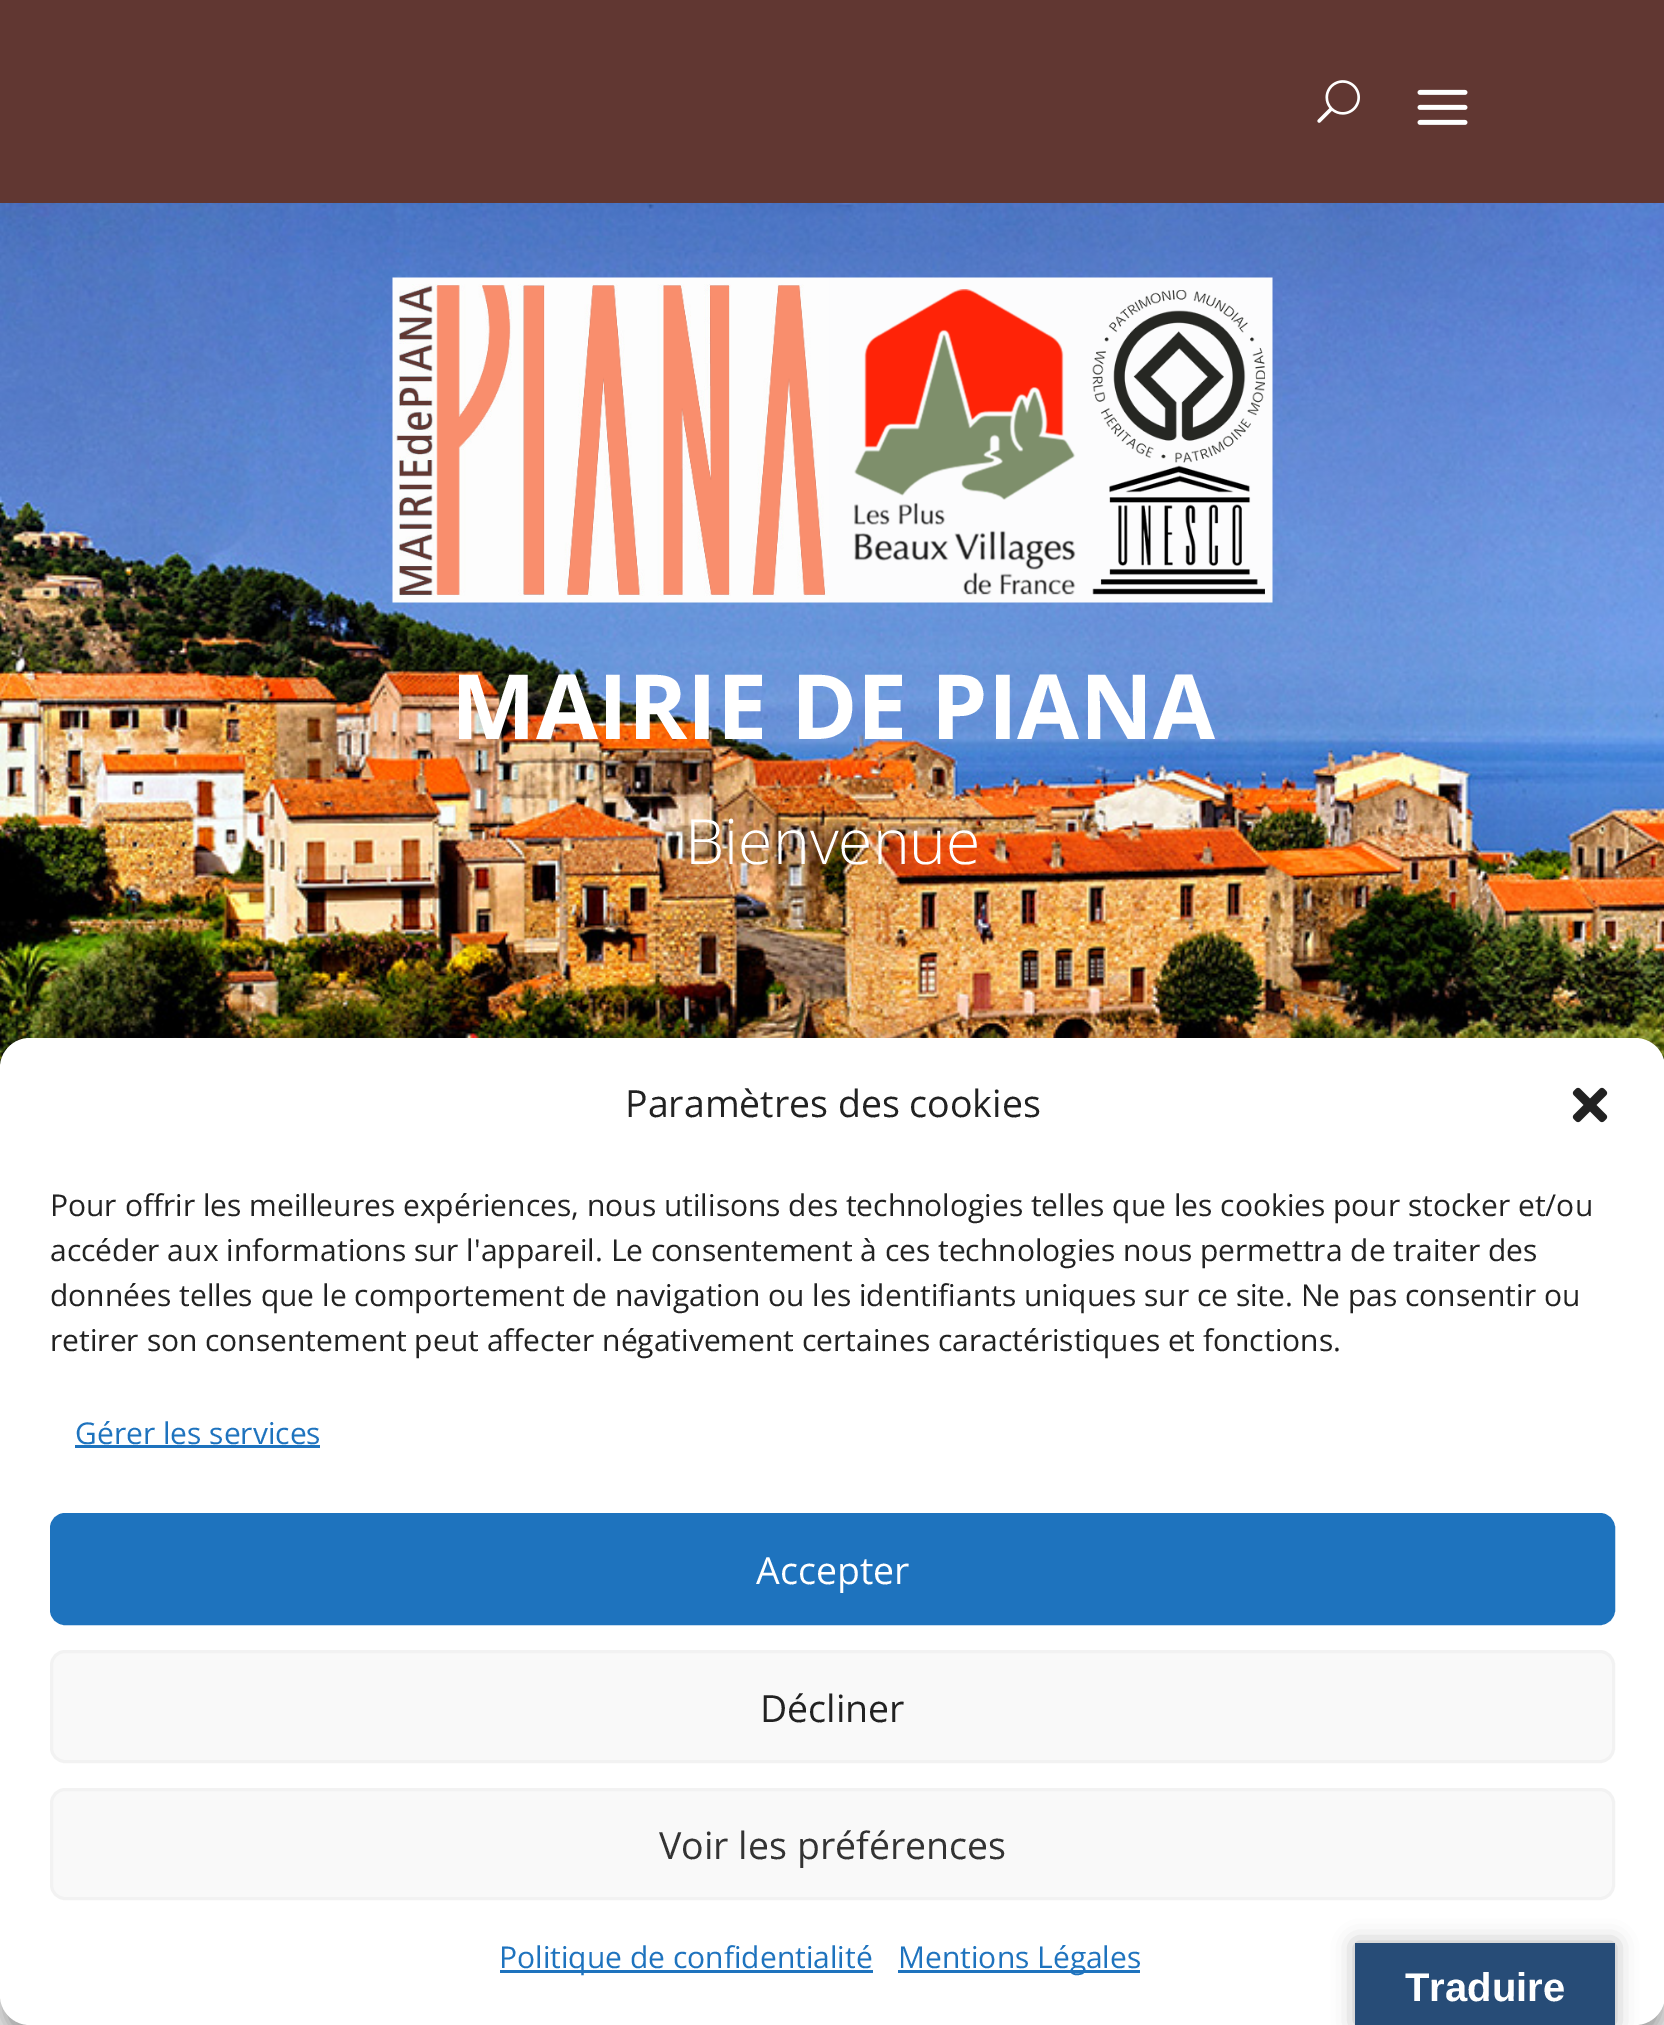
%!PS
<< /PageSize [1664 2025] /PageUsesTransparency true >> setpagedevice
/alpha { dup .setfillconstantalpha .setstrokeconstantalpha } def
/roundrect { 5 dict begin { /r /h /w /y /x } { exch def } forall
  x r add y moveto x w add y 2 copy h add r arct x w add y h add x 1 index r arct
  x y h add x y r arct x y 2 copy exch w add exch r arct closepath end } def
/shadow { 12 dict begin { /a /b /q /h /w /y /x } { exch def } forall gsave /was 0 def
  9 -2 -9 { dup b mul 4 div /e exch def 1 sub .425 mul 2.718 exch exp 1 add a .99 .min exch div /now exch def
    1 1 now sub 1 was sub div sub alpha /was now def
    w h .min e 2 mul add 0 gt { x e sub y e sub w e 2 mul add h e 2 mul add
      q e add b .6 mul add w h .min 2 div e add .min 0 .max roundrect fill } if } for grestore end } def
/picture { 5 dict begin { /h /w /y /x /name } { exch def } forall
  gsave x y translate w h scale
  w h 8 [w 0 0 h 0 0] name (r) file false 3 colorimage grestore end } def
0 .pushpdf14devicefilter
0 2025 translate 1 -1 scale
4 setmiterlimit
1 setgray
0 0 1664 2025 rectfill
0.38 0.216 0.196 setrgbcolor
0 0 1664 203 rectfill
(img1.rgb) 1317 80 43 43 picture
(img2.rgb) 1417 89 51 36 picture
(img3.rgb) 0 203 1664 865 picture
(img4.rgb) 392 277 881 326 picture
/OpenSans-Bold [90 0 0 -90 0 0] selectfont
1 setgray
451 739 moveto (MAIRIE DE PIANA) show
/OpenSans-Light [62.5 0 0 -62.5 0 0] selectfont
685 864 moveto (Bienvenue) show
0 setgray
0 1053 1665 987 30 7.5 0.23 shadow
0 1063 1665 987 30 25 0.19 shadow
1 setgray
0 1038 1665 987 30 roundrect fill
/OpenSans-Regular [37.5 0 0 -37.5 0 0] selectfont
0.133 setgray
625 1117 moveto (Paramètres des cookies) show
(img5.rgb) 1572 1087 36 36 picture
/OpenSans-Regular [30 0 0 -30 0 0] selectfont
50 1216 moveto (Pour offrir les meilleures expériences, nous utilisons des technologies telles que les cookies pour stocker et/ou) show
50 1261 moveto (accéder aux informations sur l'appareil. Le consentement à ces technologies nous permettra de traiter des) show
50 1306 moveto (données telles que le comportement de navigation ou les identifiants uniques sur ce site. Ne pas consentir ou) show
50 1351 moveto (retirer son consentement peut affecter négativement certaines caractéristiques et fonctions.) show
0.118 0.451 0.745 setrgbcolor
75 1444 moveto (Gérer les services) show
75 1445 245 3 rectfill
51.5 1514.5 1562 109 13.5 roundrect gsave fill grestore
3 setlinewidth
stroke
/OpenSans-Regular [37.5 0 0 -37.5 0 0] selectfont
1 setgray
756 1584 moveto (Accepter) show
0.976 setgray
51.5 1651.5 1562 110 13.5 roundrect gsave fill grestore
0.949 setgray
stroke
0.133 setgray
760 1722 moveto (Décliner) show
0.976 setgray
51.5 1789.5 1562 109 13.5 roundrect gsave fill grestore
0.949 setgray
stroke
0.2 setgray
659 1859 moveto (Voir les préférences) show
0.118 0.451 0.745 setrgbcolor
500 1970 373 3 rectfill
/OpenSans-Regular [30 0 0 -30 0 0] selectfont
499 1968 moveto (Politique de confidentialité) show
898 1970 242 3 rectfill
898 1968 moveto (Mentions Légales) show
0 setgray
1355 1943 260 82 0 11 0.3 shadow
0.153 0.298 0.467 setrgbcolor
1355 1943 260 82 rectfill
/LiberationSans-Bold [40 0 0 -40 0 0] selectfont
1 setgray
1405 2001 moveto (Traduire) show
.poppdf14devicefilter showpage
